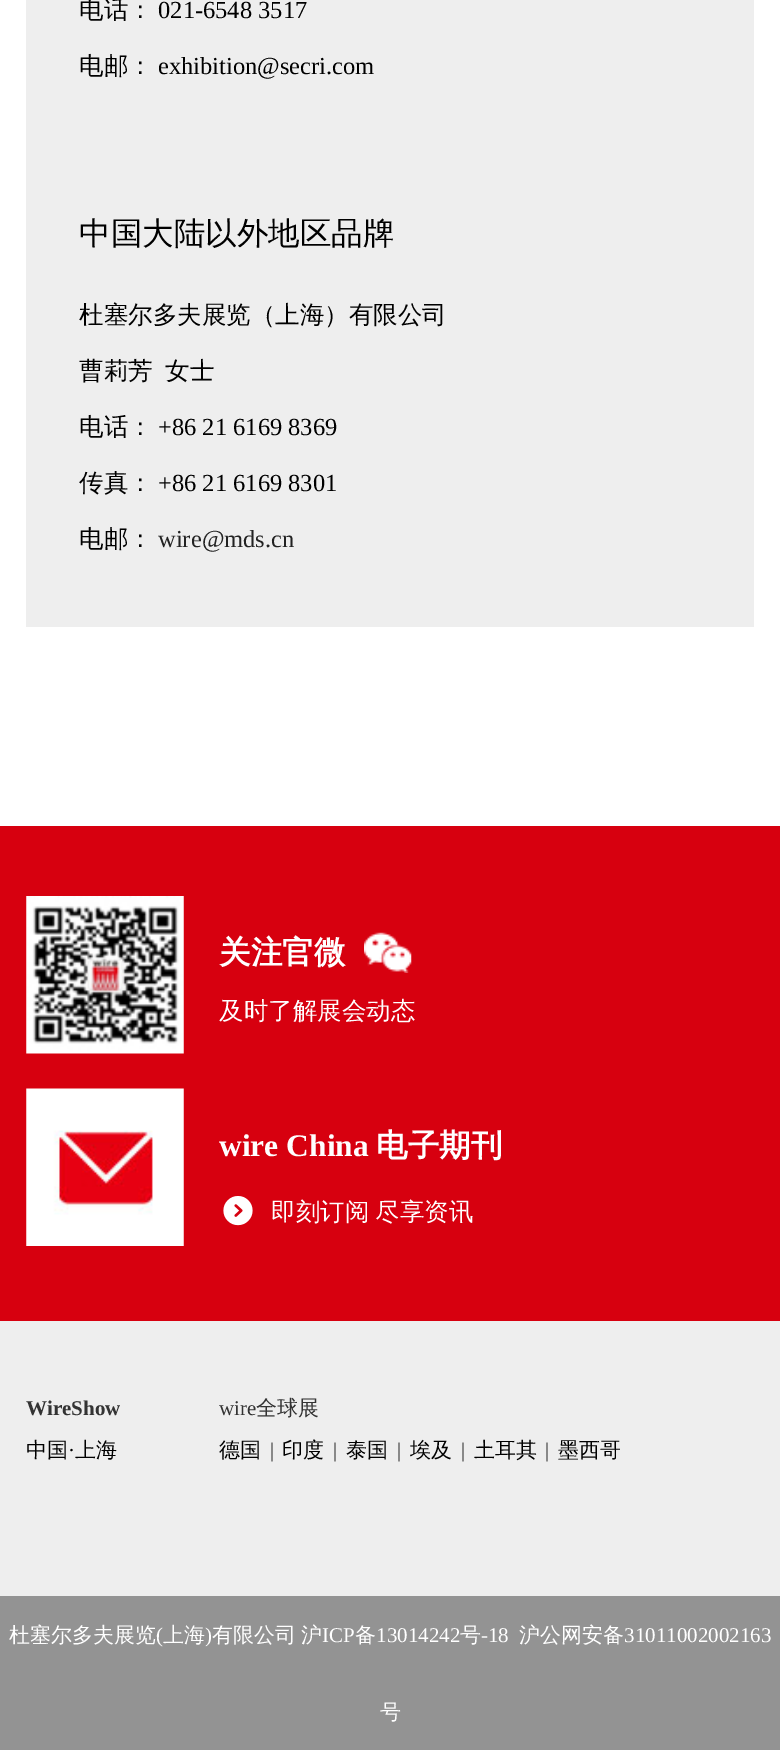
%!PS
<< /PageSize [780 1750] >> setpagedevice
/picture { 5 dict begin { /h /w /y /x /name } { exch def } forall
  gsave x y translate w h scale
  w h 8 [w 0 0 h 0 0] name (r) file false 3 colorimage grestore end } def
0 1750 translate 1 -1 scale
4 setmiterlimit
1 setgray
0 0 780 1750 rectfill
0.933 setgray
26 0 728 627 rectfill
/WenQuanYiZenHei-Medium [24.5 0 0 -24.5 0 0] selectfont
0 setgray
79 18 moveto (电话：) show
/LiberationSerif-Regular [24.5 0 0 -24.5 0 0] selectfont
158 18 moveto (021-6548 3517) show
/WenQuanYiZenHei-Medium [24.5 0 0 -24.5 0 0] selectfont
79 74 moveto (电邮：) show
/LiberationSerif-Regular [24.5 0 0 -24.5 0 0] selectfont
158 74 moveto (exhibition@secri.com) show
/WenQuanYiZenHei-Medium [31.5 0 0 -31.5 0 0] selectfont
79 244 moveto (中国大陆以外地区品牌) show
/WenQuanYiZenHei-Medium [24.5 0 0 -24.5 0 0] selectfont
79 323 moveto (杜塞尔多夫展览（上海）有限公司) show
79 379 moveto (曹莉芳) show
165 379 moveto (女士) show
79 435 moveto (电话：) show
/LiberationSerif-Regular [24.5 0 0 -24.5 0 0] selectfont
158 435 moveto (+86 21 6169 8369) show
/WenQuanYiZenHei-Medium [24.5 0 0 -24.5 0 0] selectfont
79 491 moveto (传真：) show
/LiberationSerif-Regular [24.5 0 0 -24.5 0 0] selectfont
158 491 moveto (+86 21 6169 8301) show
/WenQuanYiZenHei-Medium [24.5 0 0 -24.5 0 0] selectfont
79 547 moveto (电邮：) show
/LiberationSerif-Regular [24.5 0 0 -24.5 0 0] selectfont
0.133 setgray
158 547 moveto (wire@mds.cn) show
0.843 0 0.059 setrgbcolor
0 826 780 495 rectfill
(img1.rgb) 26 896 158 158 picture
/WenQuanYiZenHei-Bold [31.5 0 0 -31.5 0 0] selectfont
1 setgray
219 963 moveto (关注官微) show
(img2.rgb) 364 932 48 41 picture
/WenQuanYiZenHei-Medium [24.5 0 0 -24.5 0 0] selectfont
219 1019 moveto (及时了解展会动态) show
(img3.rgb) 26 1088 158 158 picture
/LiberationSerif-Bold [31.5 0 0 -31.5 0 0] selectfont
219 1156 moveto (wire China) show
/WenQuanYiZenHei-Bold [31.5 0 0 -31.5 0 0] selectfont
376 1156 moveto (电子期刊) show
(img4.rgb) 223 1196 30 30 picture
/WenQuanYiZenHei-Medium [24.5 0 0 -24.5 0 0] selectfont
271 1220 moveto (即刻订阅) show
375 1220 moveto (尽享资讯) show
0.933 setgray
0 1321 780 275 rectfill
/LiberationSerif-Bold [21 0 0 -21 0 0] selectfont
0.2 setgray
26 1415 moveto (WireShow) show
/WenQuanYiZenHei-Medium [21 0 0 -21 0 0] selectfont
0 setgray
26 1457 moveto (中国) show
/LiberationSerif-Regular [21 0 0 -21 0 0] selectfont
68 1457 moveto (·) show
/WenQuanYiZenHei-Medium [21 0 0 -21 0 0] selectfont
75 1457 moveto (上海) show
/LiberationSerif-Regular [21 0 0 -21 0 0] selectfont
0.2 setgray
219 1415 moveto (wire) show
/WenQuanYiZenHei-Medium [21 0 0 -21 0 0] selectfont
256 1415 moveto (全球展) show
0 setgray
219 1457 moveto (德国) show
/LiberationSerif-Regular [21 0 0 -21 0 0] selectfont
0.2 setgray
270 1457 moveto (|) show
/WenQuanYiZenHei-Medium [21 0 0 -21 0 0] selectfont
0 setgray
282 1457 moveto (印度) show
/LiberationSerif-Regular [21 0 0 -21 0 0] selectfont
0.2 setgray
333 1457 moveto (|) show
/WenQuanYiZenHei-Medium [21 0 0 -21 0 0] selectfont
0 setgray
346 1457 moveto (泰国) show
/LiberationSerif-Regular [21 0 0 -21 0 0] selectfont
0.2 setgray
397 1457 moveto (|) show
/WenQuanYiZenHei-Medium [21 0 0 -21 0 0] selectfont
0 setgray
410 1457 moveto (埃及) show
/LiberationSerif-Regular [21 0 0 -21 0 0] selectfont
0.2 setgray
461 1457 moveto (|) show
/WenQuanYiZenHei-Medium [21 0 0 -21 0 0] selectfont
0 setgray
474 1457 moveto (土耳其) show
/LiberationSerif-Regular [21 0 0 -21 0 0] selectfont
0.2 setgray
545 1457 moveto (|) show
/WenQuanYiZenHei-Medium [21 0 0 -21 0 0] selectfont
0 setgray
558 1457 moveto (墨西哥) show
0.576 setgray
0 1596 780 154 rectfill
1 setgray
9 1642 moveto (杜塞尔多夫展览) show
/LiberationSerif-Regular [21 0 0 -21 0 0] selectfont
156 1642 moveto (\() show
/WenQuanYiZenHei-Medium [21 0 0 -21 0 0] selectfont
163 1642 moveto (上海) show
/LiberationSerif-Regular [21 0 0 -21 0 0] selectfont
205 1642 moveto (\)) show
/WenQuanYiZenHei-Medium [21 0 0 -21 0 0] selectfont
212 1642 moveto (有限公司) show
301 1642 moveto (沪) show
/LiberationSerif-Regular [21 0 0 -21 0 0] selectfont
322 1642 moveto (ICP) show
/WenQuanYiZenHei-Medium [21 0 0 -21 0 0] selectfont
355 1642 moveto (备) show
/LiberationSerif-Regular [21 0 0 -21 0 0] selectfont
376 1642 moveto (13014242) show
/WenQuanYiZenHei-Medium [21 0 0 -21 0 0] selectfont
460 1642 moveto (号) show
/LiberationSerif-Regular [21 0 0 -21 0 0] selectfont
481 1642 moveto (-18) show
/WenQuanYiZenHei-Medium [21 0 0 -21 0 0] selectfont
519 1642 moveto (沪公网安备) show
/LiberationSerif-Regular [21 0 0 -21 0 0] selectfont
624 1642 moveto (31011002002163) show
/WenQuanYiZenHei-Medium [21 0 0 -21 0 0] selectfont
380 1719 moveto (号) show
showpage
